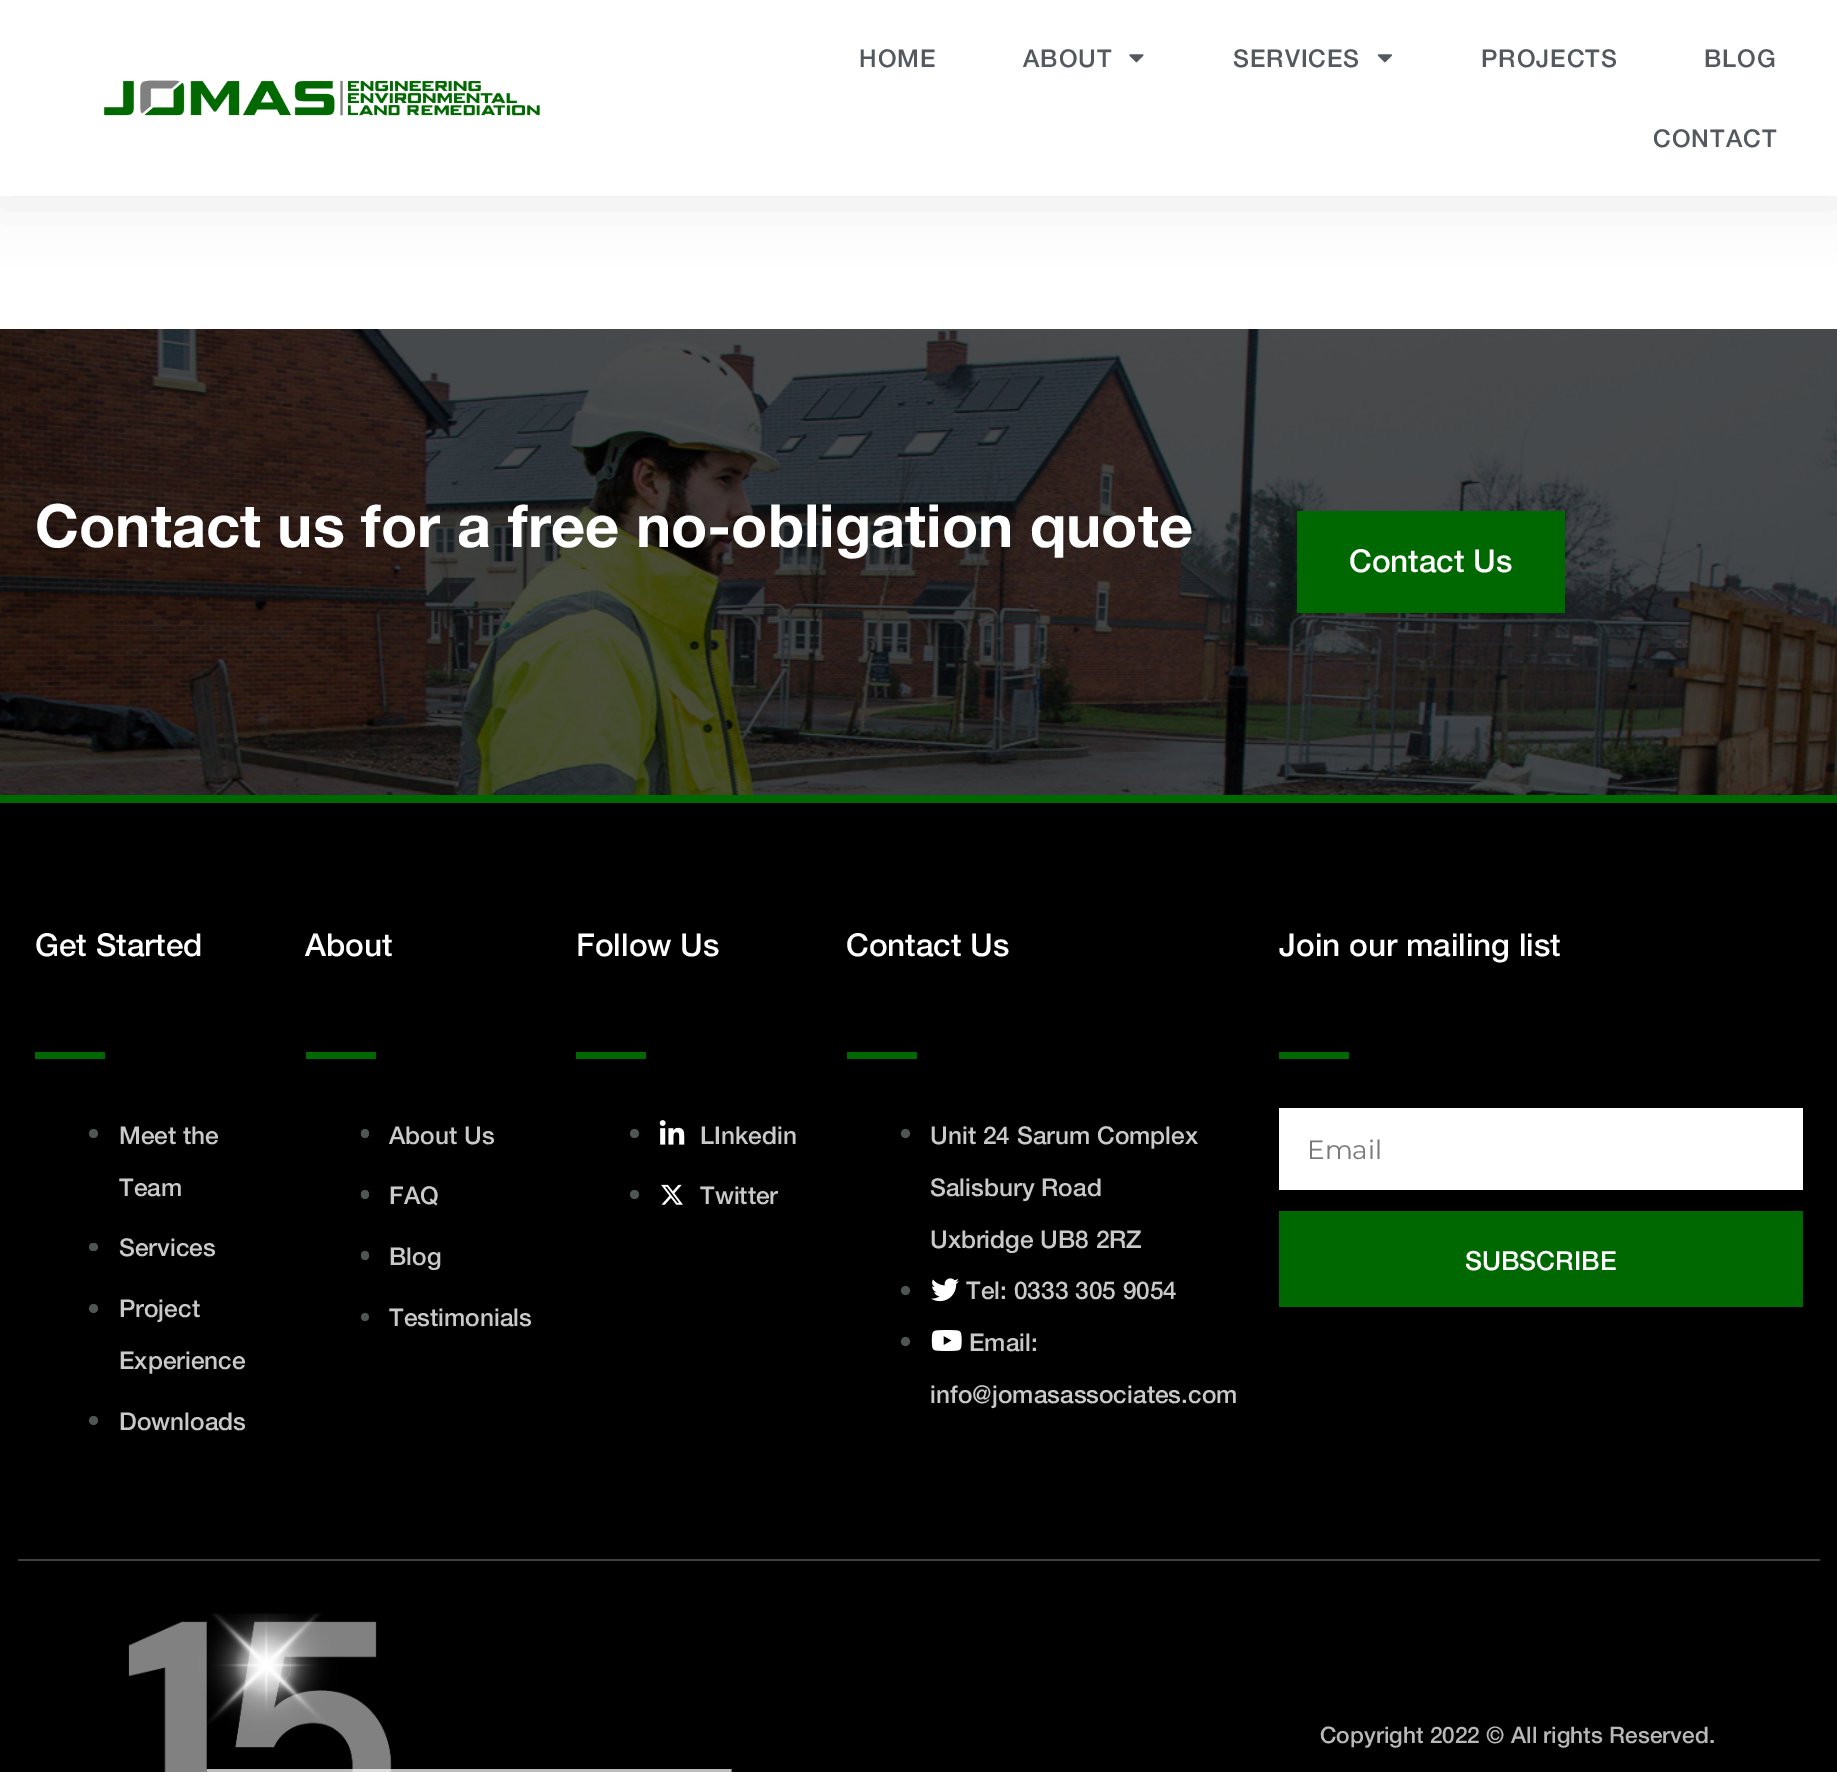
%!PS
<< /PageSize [1837 1772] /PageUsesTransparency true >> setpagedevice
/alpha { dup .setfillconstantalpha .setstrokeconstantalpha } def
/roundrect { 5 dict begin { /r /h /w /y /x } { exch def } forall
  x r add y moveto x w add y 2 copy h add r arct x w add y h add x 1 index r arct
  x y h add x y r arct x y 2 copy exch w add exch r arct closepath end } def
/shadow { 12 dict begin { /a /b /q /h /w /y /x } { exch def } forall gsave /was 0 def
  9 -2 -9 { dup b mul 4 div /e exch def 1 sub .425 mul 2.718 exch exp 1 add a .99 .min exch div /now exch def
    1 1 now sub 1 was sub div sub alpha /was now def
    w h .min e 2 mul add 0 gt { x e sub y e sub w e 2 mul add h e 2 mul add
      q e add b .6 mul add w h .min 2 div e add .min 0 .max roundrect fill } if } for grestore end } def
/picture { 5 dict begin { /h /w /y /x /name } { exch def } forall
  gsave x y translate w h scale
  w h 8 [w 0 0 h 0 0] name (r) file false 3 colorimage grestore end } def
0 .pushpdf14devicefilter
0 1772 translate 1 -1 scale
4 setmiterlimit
1 setgray
0 0 1837 1772 rectfill
0 setgray
-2 5 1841 200 0 29 0.07 shadow
1 setgray
0 0 1837 196 rectfill
(img1.rgb) 103 80 437 36 picture
/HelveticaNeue-Medium [24.5 0 0 -24.5 0 0] selectfont
0.329 0.349 0.373 setrgbcolor
859 67 moveto 1 0 (HOME) ashow
1023 67 moveto 1 0 (ABOUT) ashow
(img2.rgb) 1129 54 15 9 picture
1233 67 moveto 1 0 (SERVICES) ashow
(img3.rgb) 1377 54 15 9 picture
1481 67 moveto 1 0 (PROJECTS) ashow
1704 67 moveto 1 0 (BLOG) ashow
1653 147 moveto 1 0 (CONTACT) ashow
(img4.rgb) 0 329 1837 466 picture
/HelveticaNeue-Bold [59.5 0 0 -59.5 0 0] selectfont
1 setgray
35 547 moveto (Contact us for a free no-obligation quote) show
0 0.408 0 setrgbcolor
1297 511 268 102 rectfill
/HelveticaNeue-Medium [31.5 0 0 -31.5 0 0] selectfont
1 setgray
1349 572 moveto (Contact Us) show
0 setgray
0 803 1837 969 rectfill
0 0.408 0 setrgbcolor
0 795 1837 8 rectfill
1 setgray
35 956 moveto (Get Started) show
0 0.408 0 setrgbcolor
35 1052 70 7 rectfill
0.306 0.337 0.322 setrgbcolor
newpath 93.5 1133.5 4.5 0 360 arc closepath fill
/HelveticaNeue-Medium [24.5 0 0 -24.5 0 0] selectfont
0.788 setgray
119 1144 moveto (Meet the) show
119 1196 moveto (Team) show
0.306 0.337 0.322 setrgbcolor
89 1243 9 8 4 roundrect fill
0.788 setgray
119 1256 moveto (Services) show
0.306 0.337 0.322 setrgbcolor
newpath 93.5 1308.5 4.5 0 360 arc closepath fill
0.788 setgray
119 1317 moveto (Project) show
119 1369 moveto (Experience) show
0.306 0.337 0.322 setrgbcolor
newpath 93.5 1420.5 4.5 0 360 arc closepath fill
0.788 setgray
119 1430 moveto (Downloads) show
/HelveticaNeue-Medium [31.5 0 0 -31.5 0 0] selectfont
1 setgray
305 956 moveto (About) show
0 0.408 0 setrgbcolor
306 1052 70 7 rectfill
0.306 0.337 0.322 setrgbcolor
361 1129 8 9 4 roundrect fill
/HelveticaNeue-Medium [24.5 0 0 -24.5 0 0] selectfont
0.788 setgray
389 1144 moveto (About Us) show
0.306 0.337 0.322 setrgbcolor
361 1190 8 9 4 roundrect fill
0.788 setgray
389 1204 moveto (FAQ) show
0.306 0.337 0.322 setrgbcolor
361 1251 8 9 4 roundrect fill
0.788 setgray
389 1265 moveto (Blog) show
0.306 0.337 0.322 setrgbcolor
newpath 365 1317 4 0 360 arc closepath fill
0.788 setgray
389 1326 moveto (Testimonials) show
/HelveticaNeue-Medium [31.5 0 0 -31.5 0 0] selectfont
1 setgray
576 956 moveto (Follow Us) show
0 0.408 0 setrgbcolor
576 1052 70 7 rectfill
0.306 0.337 0.322 setrgbcolor
newpath 634.5 1133.5 4.5 0 360 arc closepath fill
(img5.rgb) 659 1120 26 25 picture
/HelveticaNeue-Medium [24.5 0 0 -24.5 0 0] selectfont
0.788 setgray
700 1144 moveto (LInkedin) show
0.306 0.337 0.322 setrgbcolor
newpath 634.5 1194.5 4.5 0 360 arc closepath fill
(img6.rgb) 661 1184 22 21 picture
0.788 setgray
700 1204 moveto (Twitter) show
/HelveticaNeue-Medium [31.5 0 0 -31.5 0 0] selectfont
1 setgray
846 956 moveto (Contact Us) show
0 0.408 0 setrgbcolor
847 1052 70 7 rectfill
0.306 0.337 0.322 setrgbcolor
newpath 905.5 1133.5 4.5 0 360 arc closepath fill
/HelveticaNeue-Medium [24.5 0 0 -24.5 0 0] selectfont
0.788 setgray
930 1144 moveto (Unit 24 Sarum Complex) show
930 1196 moveto (Salisbury Road) show
930 1248 moveto (Uxbridge UB8 2RZ) show
0.306 0.337 0.322 setrgbcolor
newpath 905.5 1290.5 4.5 0 360 arc closepath fill
(img7.rgb) 931 1278 28 24 picture
0.788 setgray
966 1299 moveto (Tel: 0333 305 9054) show
0.306 0.337 0.322 setrgbcolor
newpath 905.5 1341.5 4.5 0 360 arc closepath fill
(img8.rgb) 931 1330 31 21 picture
0.788 setgray
969 1351 moveto (Email:) show
930 1403 moveto (info@jomasassociates.com) show
/HelveticaNeue-Medium [31.5 0 0 -31.5 0 0] selectfont
1 setgray
1279 956 moveto (Join our mailing list) show
0 0.408 0 setrgbcolor
1279 1052 70 7 rectfill
1 setgray
1279 1108 524 82 rectfill
/Montserrat-Regular [26.25 0 0 -26.25 0 0] selectfont
0.475 0.478 0.486 setrgbcolor
1307 1159 moveto (Email) show
0 0.408 0 setrgbcolor
1279 1211 524 96 rectfill
/HelveticaNeue-Medium [26.25 0 0 -26.25 0 0] selectfont
1 setgray
1465 1270 moveto (SUBSCRIBE) show
0.251 setgray
18 1559 1802 2 rectfill
(img9.rgb) 128 1613 604 159 picture
/HelveticaNeue-Medium [22.75 0 0 -22.75 0 0] selectfont
0.722 setgray
1320 1743 moveto (Copyright 2022 © All rights Reserved.) show
.poppdf14devicefilter showpage
